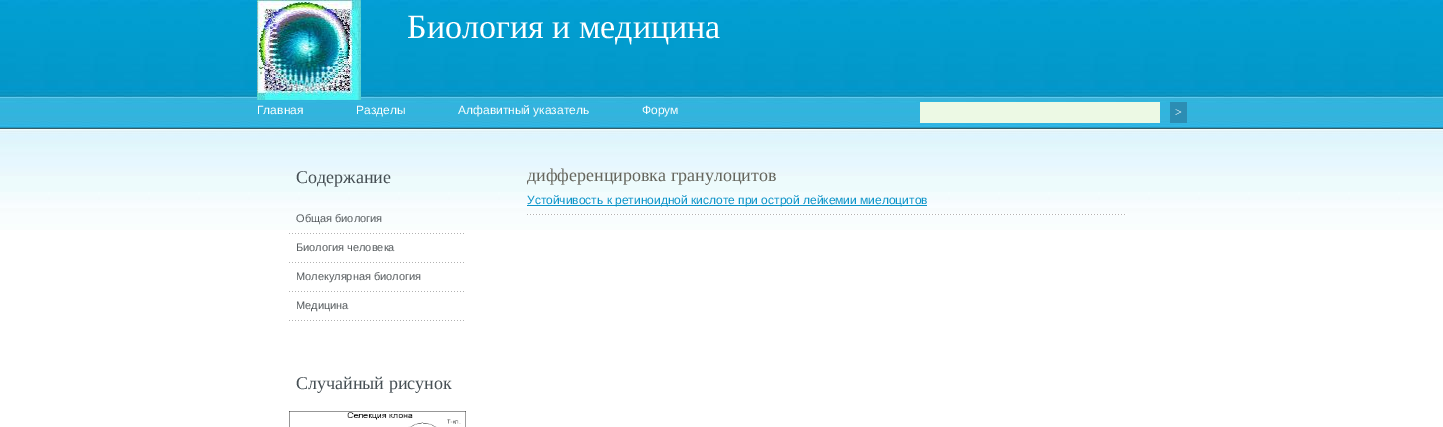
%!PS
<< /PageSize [1443 427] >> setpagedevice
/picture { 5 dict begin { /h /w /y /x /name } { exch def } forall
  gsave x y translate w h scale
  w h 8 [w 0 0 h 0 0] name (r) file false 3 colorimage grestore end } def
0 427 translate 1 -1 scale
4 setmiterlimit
1 setgray
0 0 1443 427 rectfill
(img1.rgb) 0 0 1443 230 picture
(img2.rgb) 257 0 104 100 picture
/LiberationSerif-Regular [34 0 0 -34 0 0] selectfont
407 38 moveto (Биология и медицина) show
/LiberationSans-Regular [12 0 0 -12 0 0] selectfont
257 114 moveto (Главная) show
356 114 moveto (Разделы) show
458 114 moveto (Алфавитный указатель) show
642 114 moveto (Форум) show
0.925 0.976 0.894 setrgbcolor
920 102 240 21 rectfill
0.173 0.553 0.702 setrgbcolor
1170 102 17 21 rectfill
/LiberationSerif-Regular [12 0 0 -12 0 0] selectfont
1 setgray
1175 116 moveto (>) show
/LiberationSerif-Regular [18 0 0 -18 0 0] selectfont
0.275 0.31 0.329 setrgbcolor
296 183 moveto (Содержание) show
(img3.rgb) 289 233 175 1 picture
/LiberationSans-Regular [11 0 0 -11 0 0] selectfont
0.345 0.365 0.376 setrgbcolor
296 222 moveto (Общая биология) show
(img3.rgb) 289 262 175 1 picture
296 251 moveto (Биология человека) show
(img3.rgb) 289 291 175 1 picture
296 280 moveto (Молекулярная биология) show
(img3.rgb) 289 320 175 1 picture
296 309 moveto (Медицина) show
/LiberationSerif-Regular [18 0 0 -18 0 0] selectfont
0.275 0.31 0.329 setrgbcolor
296 389 moveto (Случайный рисунок) show
(img4.rgb) 289 411 177 16 picture
(img5.rgb) 527 214 600 1 picture
0.4 0.4 0.369 setrgbcolor
527 181 moveto (дифференцировка гранулоцитов) show
0.047 0.584 0.788 setrgbcolor
527 205 400 1 rectfill
/LiberationSans-Regular [12 0 0 -12 0 0] selectfont
527 204 moveto (Устойчивость к ретиноидной кислоте при острой лейкемии миелоцитов) show
showpage
